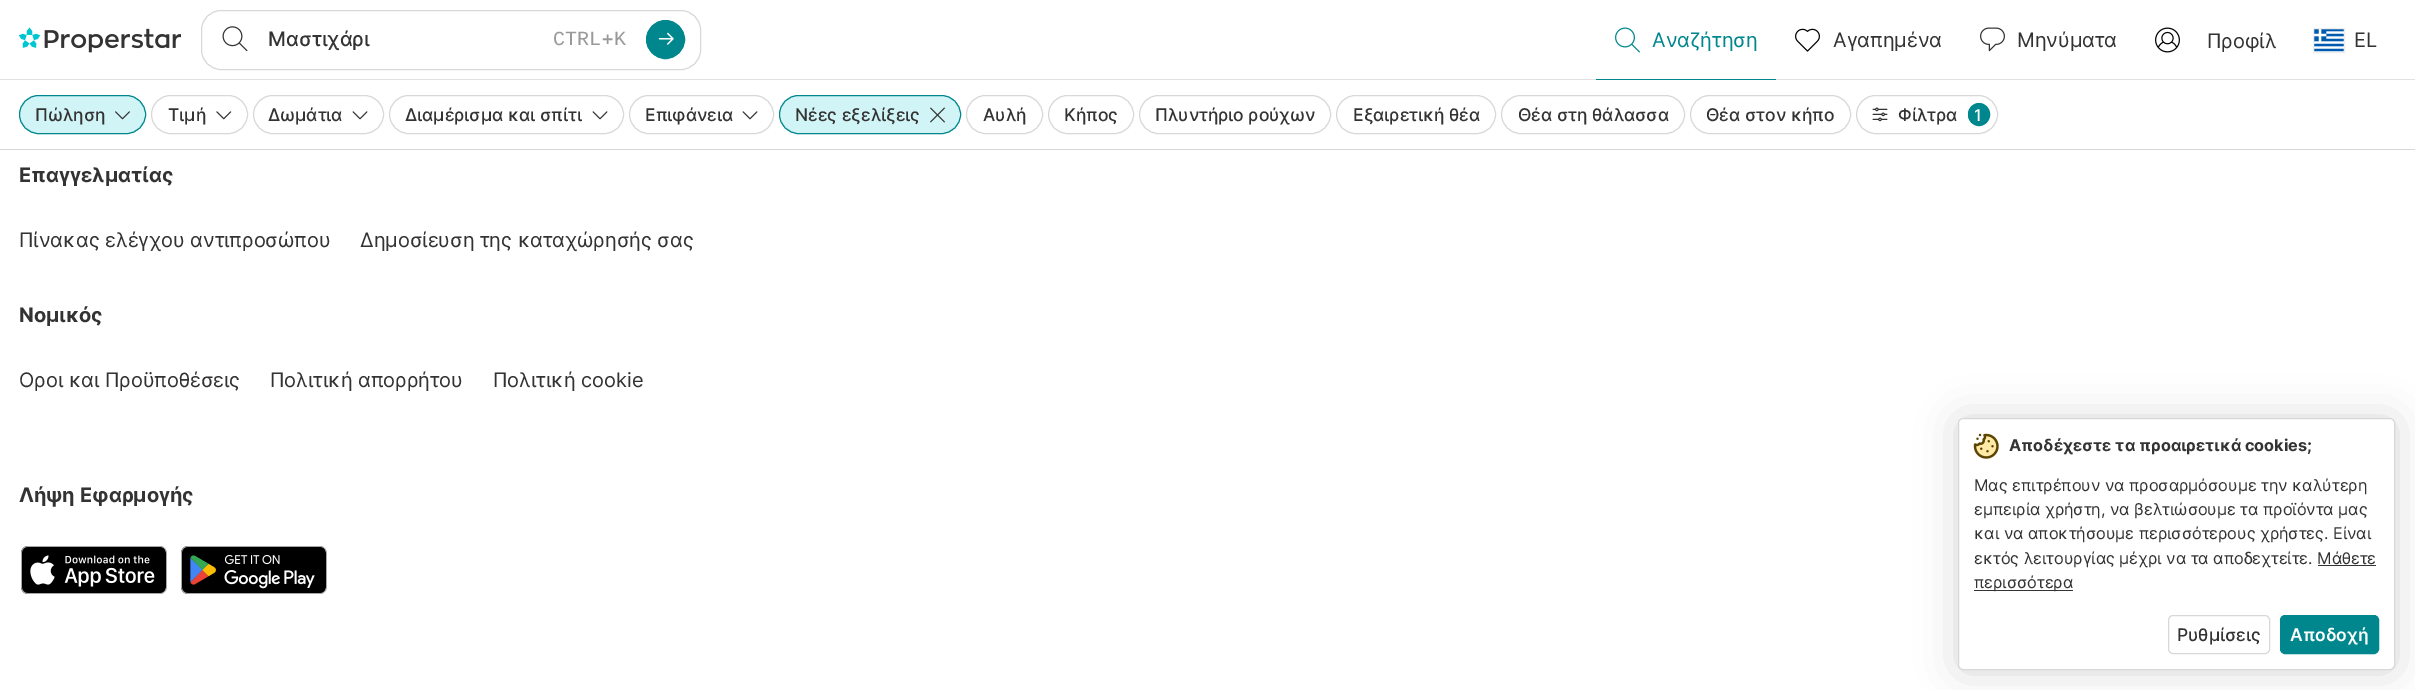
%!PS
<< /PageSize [2415 690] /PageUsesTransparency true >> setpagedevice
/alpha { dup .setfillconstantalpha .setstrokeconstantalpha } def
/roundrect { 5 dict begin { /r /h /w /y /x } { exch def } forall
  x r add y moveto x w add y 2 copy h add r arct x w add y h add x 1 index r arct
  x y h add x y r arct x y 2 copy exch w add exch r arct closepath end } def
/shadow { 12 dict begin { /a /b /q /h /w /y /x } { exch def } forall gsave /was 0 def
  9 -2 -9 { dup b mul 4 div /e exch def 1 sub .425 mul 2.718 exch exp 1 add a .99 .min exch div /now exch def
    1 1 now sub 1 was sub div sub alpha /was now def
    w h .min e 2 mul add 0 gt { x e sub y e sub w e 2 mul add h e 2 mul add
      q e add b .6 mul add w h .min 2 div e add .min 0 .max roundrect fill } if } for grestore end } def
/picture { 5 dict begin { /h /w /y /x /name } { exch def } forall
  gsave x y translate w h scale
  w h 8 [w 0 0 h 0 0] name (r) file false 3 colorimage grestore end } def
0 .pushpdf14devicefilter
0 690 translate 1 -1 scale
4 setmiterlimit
1 setgray
0 0 2415 690 rectfill
0.886 setgray
0 79 2415 1 rectfill
(img1.rgb) 19 27 162 26 picture
0.847 setgray
201.5 10.5 499 59 19.5 roundrect stroke
(img2.rgb) 222 26 26 26 picture
/Inter-Medium [20 0 0 -20 0 0] selectfont
0.2 setgray
268 46 moveto (Μαστιχάρι) show
/LiberationMono-Regular [20 0 0 -20 0 0] selectfont
0.6 setgray
553 45 moveto (CTRL) show
/Inter-Medium [20 0 0 -20 0 0] selectfont
601 45 moveto (+) show
/LiberationMono-Regular [20 0 0 -20 0 0] selectfont
614 45 moveto (K) show
0 0.529 0.557 setrgbcolor
newpath 665.5 39.5 19 0 360 arc closepath gsave fill grestore
stroke
(img3.rgb) 658 32 16 13 picture
1596 79 180 1 rectfill
(img4.rgb) 1615 27 25 26 picture
/Inter-Regular [20 0 0 -20 0 0] selectfont
1652 47 moveto (Αναζήτηση) show
(img5.rgb) 1795 28 25 24 picture
0.2 setgray
1833 47 moveto (Αγαπημένα) show
(img6.rgb) 1980 27 25 25 picture
2017 47 moveto (Μηνύματα) show
(img7.rgb) 2155 27 25 26 picture
2207 48 moveto (Προφίλ) show
(img8.rgb) 2314 29 30 23 picture
0.933 setgray
2313.5 28.5 31 24 rectstroke
0.2 setgray
2354 47 moveto (EL) show
0.847 setgray
0 149 2415 1 rectfill
0.82 0.961 0.969 setrgbcolor
19.5 95.5 126 38 19 roundrect gsave fill grestore
0 0.529 0.557 setrgbcolor
stroke
/Inter-Medium [17.5 0 0 -17.5 0 0] selectfont
0.2 setgray
35 121 moveto (Πώληση) show
(img9.rgb) 115 111 15 9 picture
0.847 setgray
151.5 95.5 96 38 19 roundrect stroke
0.2 setgray
168 121 moveto (Τιμή) show
(img10.rgb) 216 111 16 9 picture
0.847 setgray
253.5 95.5 130 38 19 roundrect stroke
0.2 setgray
268 121 moveto (Δωμάτια) show
(img11.rgb) 352 111 16 9 picture
0.847 setgray
389.5 95.5 234 38 19 roundrect stroke
0.2 setgray
405 121 moveto (Διαμέρισμα και σπίτι) show
(img11.rgb) 592 111 16 9 picture
0.847 setgray
629.5 95.5 144 38 19 roundrect stroke
0.2 setgray
645 121 moveto (Επιφάνεια) show
(img11.rgb) 742 111 16 9 picture
0.82 0.961 0.969 setrgbcolor
779.5 95.5 181 38 19 roundrect gsave fill grestore
0 0.529 0.557 setrgbcolor
stroke
0.2 setgray
795 121 moveto (Νέες εξελίξεις) show
(img12.rgb) 930 107 15 16 picture
0.847 setgray
966.5 95.5 76 38 19 roundrect stroke
0.2 setgray
983 121 moveto (Αυλή) show
0.847 setgray
1048.5 95.5 85 38 19 roundrect stroke
0.2 setgray
1064 121 moveto (Κήπος) show
0.847 setgray
1139.5 95.5 191 38 19 roundrect stroke
0.2 setgray
1155 121 moveto (Πλυντήριο ρούχων) show
0.847 setgray
1336.5 95.5 159 38 19 roundrect stroke
0.2 setgray
1353 121 moveto (Εξαιρετική θέα) show
0.847 setgray
1501.5 95.5 183 38 19 roundrect stroke
0.2 setgray
1518 121 moveto (Θέα στη θάλασσα) show
0.847 setgray
1690.5 95.5 160 38 19 roundrect stroke
0.2 setgray
1706 121 moveto (Θέα στον κήπο) show
0.847 setgray
1856.5 95.5 141 38 19 roundrect stroke
(img13.rgb) 1872 107 16 15 picture
0.2 setgray
1898 121 moveto (Φίλτρα) show
0 0.529 0.557 setrgbcolor
1968.5 103.5 21 22 10.5 roundrect gsave fill grestore
stroke
/Inter-Medium [16.25 0 0 -16.25 0 0] selectfont
1 setgray
1974 121 moveto (1) show
/Inter-Bold [20 0 0 -20 0 0] selectfont
0.2 setgray
19 182 moveto (Επαγγελματίας) show
/Inter-Regular [20 0 0 -20 0 0] selectfont
19 247 moveto (Πίνακας ελέγχου αντιπροσώπου) show
360 247 moveto (Δημοσίευση της καταχώρησής σας) show
/Inter-Bold [20 0 0 -20 0 0] selectfont
19 322 moveto (Νομικός) show
/Inter-Regular [20 0 0 -20 0 0] selectfont
19 387 moveto (Οροι και Προϋποθέσεις) show
270 387 moveto (Πολιτική απορρήτου) show
493 387 moveto (Πολιτική cookie) show
/Inter-Bold [20 0 0 -20 0 0] selectfont
19 502 moveto (Λήψη Εφαρμογής) show
(img14.rgb) 21 546 146 48 picture
(img15.rgb) 181 546 146 48 picture
0 setgray
1958 419 437 252 5 20 0.16 shadow
1 setgray
1958.5 418.5 436 251 4.5 roundrect gsave fill grestore
0.847 setgray
stroke
(img16.rgb) 1973 433 26 26 picture
/Inter-Bold [16.25 0 0 -16.25 0 0] selectfont
0.2 setgray
2009 451 moveto (Αποδέχεστε τα προαιρετικά cookies;) show
/Inter-Regular [16.25 0 0 -16.25 0 0] selectfont
1974 491 moveto (Μας επιτρέπουν να προσαρμόσουμε την καλύτερη) show
1974 515 moveto (εμπειρία χρήστη, να βελτιώσουμε τα προϊόντα μας) show
1974 539 moveto (και να αποκτήσουμε περισσότερους χρήστες. Είναι) show
1974 564 moveto (εκτός λειτουργίας μέχρι να τα αποδεχτείτε. Μάθετε) show
1974 590 99 1 rectfill
1974 588 moveto (περισσότερα) show
2318 565 58 1 rectfill
0.847 setgray
2168.5 615.5 101 38 4.5 roundrect stroke
/Inter-Medium [17.5 0 0 -17.5 0 0] selectfont
0.2 setgray
2177 641 moveto (Ρυθμίσεις) show
0 0.529 0.557 setrgbcolor
2280.5 615.5 98 38 4.5 roundrect gsave fill grestore
stroke
/Inter-SemiBold [17.5 0 0 -17.5 0 0] selectfont
1 setgray
2290 641 moveto (Αποδοχή) show
.poppdf14devicefilter showpage
